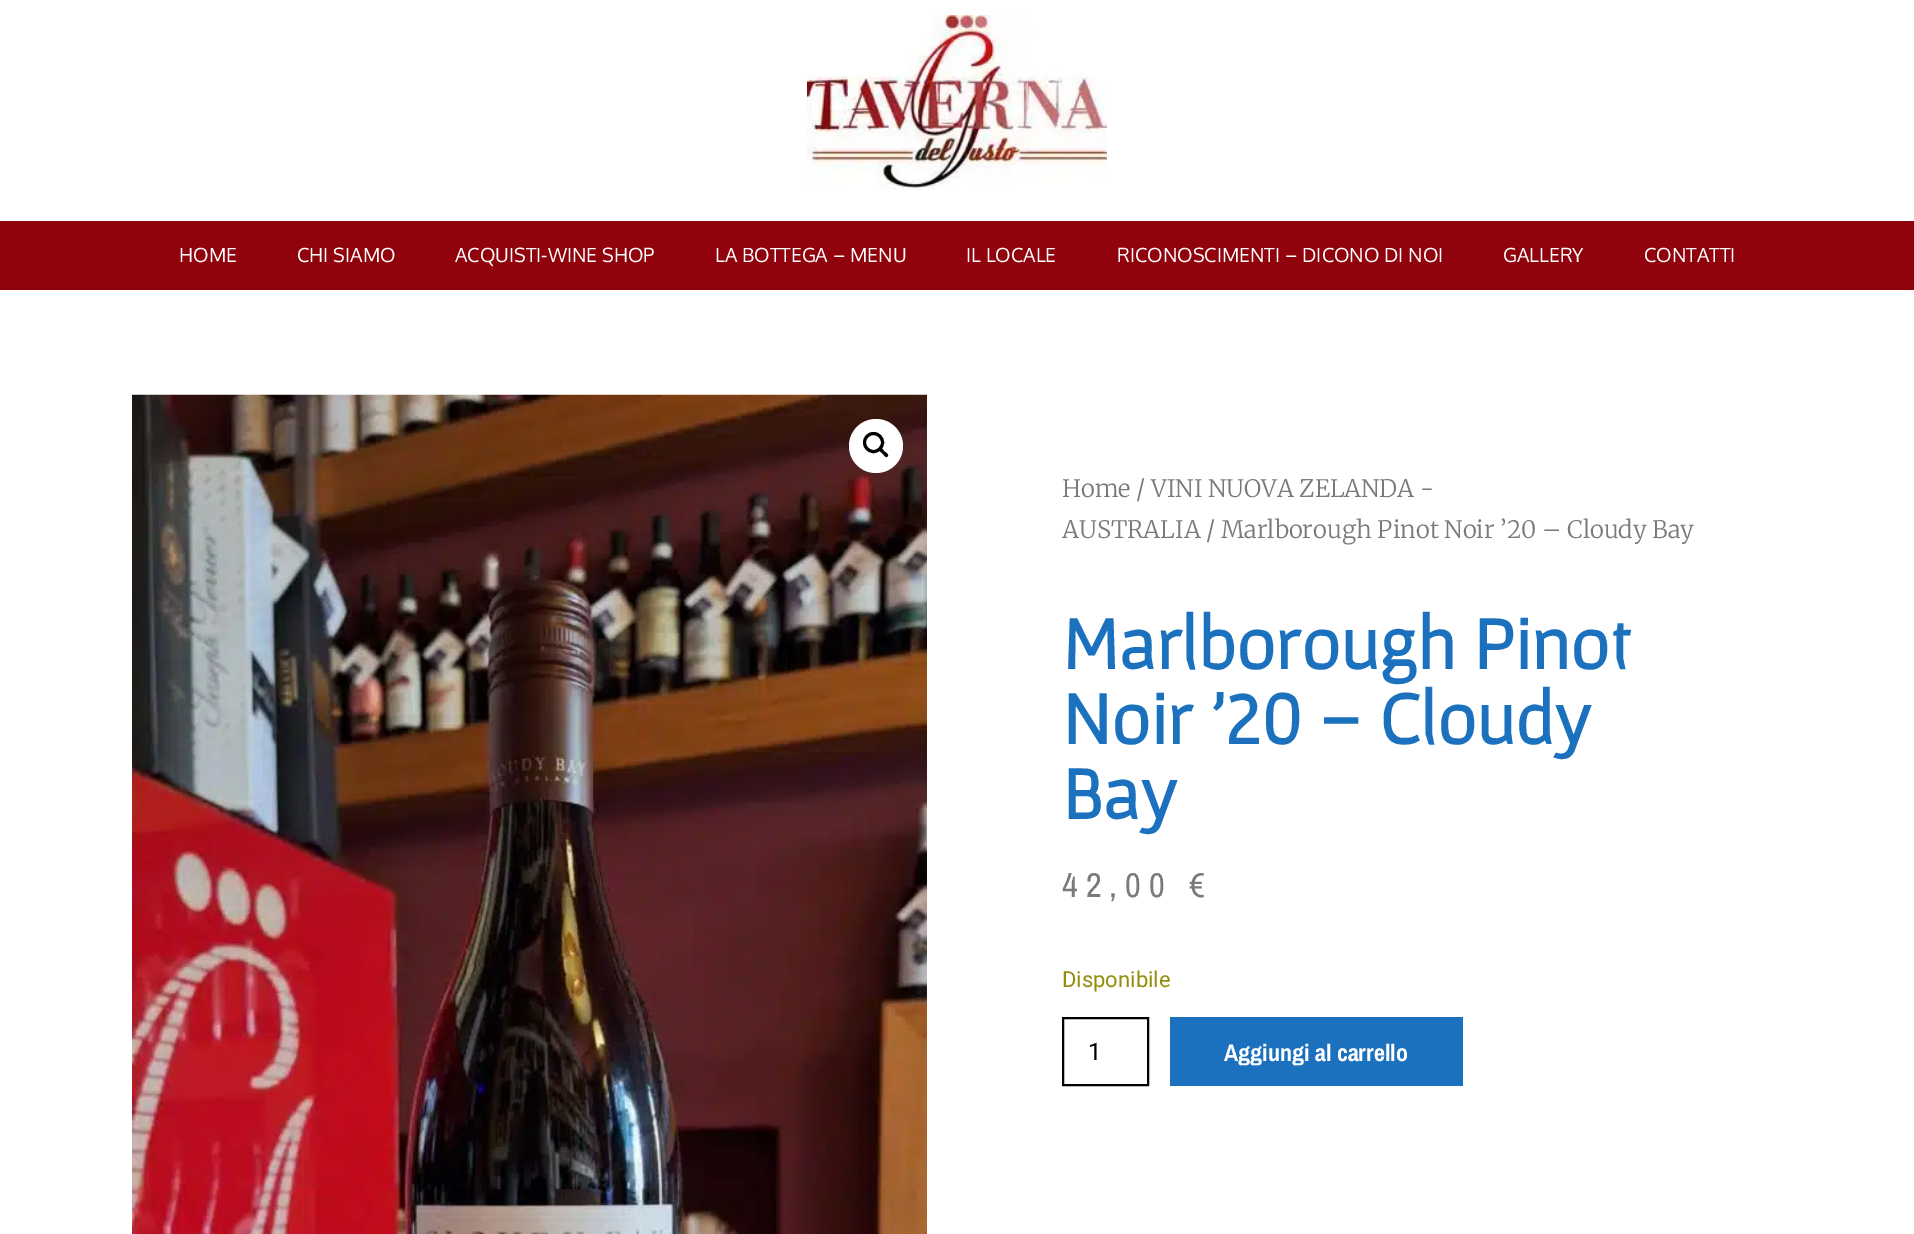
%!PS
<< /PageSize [1914 1234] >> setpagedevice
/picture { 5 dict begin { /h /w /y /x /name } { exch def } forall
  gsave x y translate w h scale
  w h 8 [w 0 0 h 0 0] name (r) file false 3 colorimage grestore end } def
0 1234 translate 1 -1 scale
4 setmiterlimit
1 setgray
0 0 1914 1234 rectfill
(img1.rgb) 807 15 300 175 picture
0.565 0.012 0.047 setrgbcolor
0 221 1914 69 rectfill
/Oxygen-Regular [19.5 0 0 -19.5 0 0] selectfont
1 setgray
179 262 moveto (HOME) show
297 262 moveto (CHI SIAMO) show
455 262 moveto (ACQUISTI-WINE SHOP) show
715 262 moveto (LA BOTTEGA – MENU) show
966 262 moveto (IL LOCALE) show
1117 262 moveto (RICONOSCIMENTI – DICONO DI NOI) show
1503 262 moveto (GALLERY) show
1644 262 moveto (CONTATTI) show
(img2.rgb) 132 394 795 840 picture
newpath 876 446 27 0 360 arc closepath fill
0 setgray
3 setlinewidth
newpath 873.5 442.5 9 0 360 arc closepath stroke
newpath 879.5 448 moveto 881 446.5 883.5 450.5 884.5 451.5 curveto 885.5 452 889.5 455 887.5 456.5 curveto 886 458.5 883.5 454.5 882.5 453.5 curveto 881.5 452.5 877.5 450 879.5 448 curveto closepath fill
/Merriweather-Light [24 0 0 -24 0 0] selectfont
0.478 setgray
1062 497 moveto (Home / VINI NUOVA ZELANDA -) show
1062 538 moveto (AUSTRALIA / Marlborough Pinot Noir ’20 – Cloudy Bay) show
/Gafata-Bold [75 0 0 -75 0 0] selectfont
0.106 0.443 0.741 setrgbcolor
1062 669 moveto (Marlborough Pinot) show
1062 744 moveto (Noir ’20 – Cloudy) show
1062 819 moveto (Bay) show
/ArchivoNarrow-Regular [34.5 0 0 -34.5 0 0] selectfont
0.478 setgray
1062 897 moveto 8 0 (42,00 €) ashow
/Roboto-Regular [22 0 0 -22 0 0] selectfont
0.584 0.557 0.035 setrgbcolor
1062 987 moveto (Disponibile) show
0 setgray
2 setlinewidth
1063 1018 85 67 rectstroke
/Roboto-Regular [24 0 0 -24 0 0] selectfont
1088 1060 moveto (1) show
0.106 0.443 0.741 setrgbcolor
1170 1017 293 69 rectfill
/ArchivoNarrow-Bold [24 0 0 -24 0 0] selectfont
1 setgray
1224 1061 moveto (Aggiungi al carrello) show
showpage
